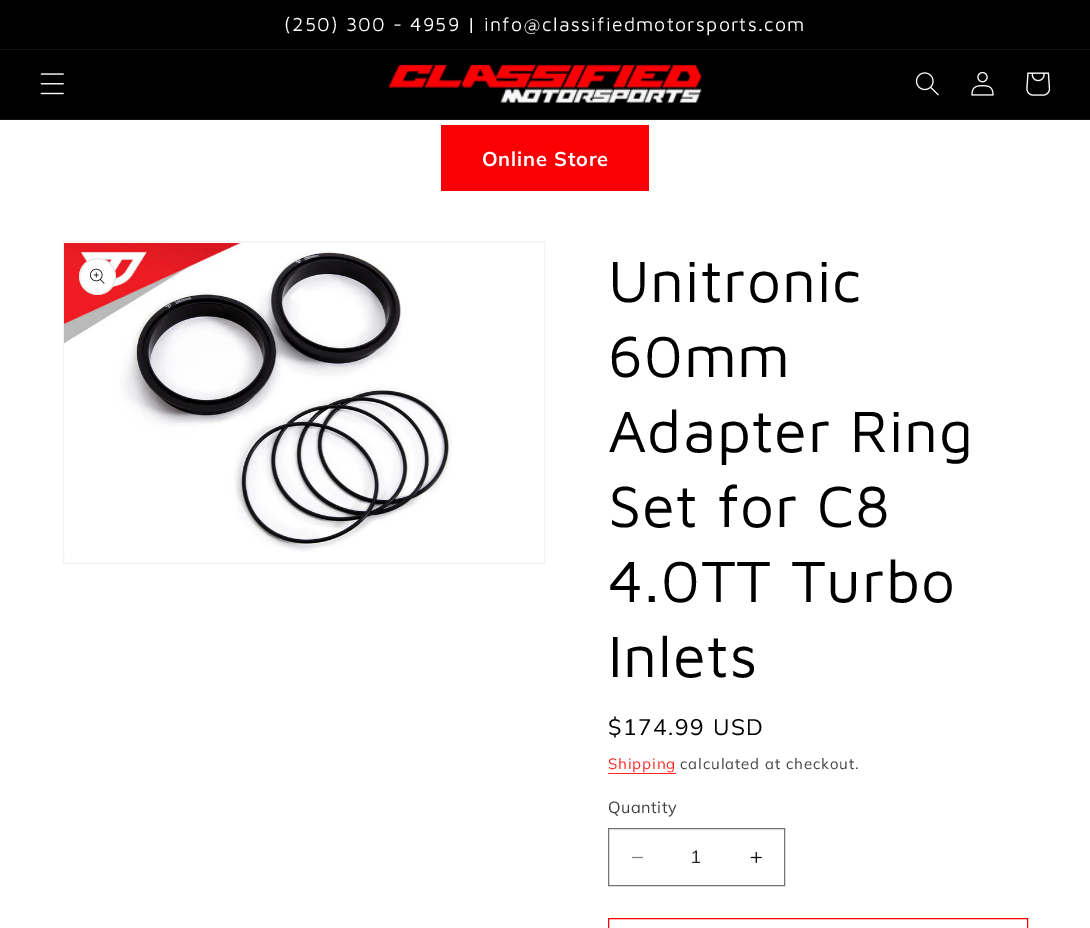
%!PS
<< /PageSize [1090 928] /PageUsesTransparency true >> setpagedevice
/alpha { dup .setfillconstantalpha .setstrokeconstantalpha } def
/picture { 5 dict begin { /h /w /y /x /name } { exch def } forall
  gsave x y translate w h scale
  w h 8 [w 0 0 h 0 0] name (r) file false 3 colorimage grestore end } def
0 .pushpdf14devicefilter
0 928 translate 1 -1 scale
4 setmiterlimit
1 setgray
0 0 1090 928 rectfill
0 setgray
0 0 1090 49 rectfill
0.078 setgray
0 49 1090 1 rectfill
/MavenPro-Regular [19.5 0 0 -19.5 0 0] selectfont
1 setgray
284 31 moveto 1.25 0 (\(250\) 300 - 4959 | info@classifiedmotorsports.com) ashow
0 setgray
0 50 1090 69 rectfill
0.078 setgray
0 119 1090 1 rectfill
(img1.rgb) 40 73 24 22 picture
(img2.rgb) 388 64 314 39 picture
(img3.rgb) 915 72 24 24 picture
(img4.rgb) 971 71 23 25 picture
(img5.rgb) 1026 72 25 24 picture
0.98 0 0.02 setrgbcolor
441 125 208 66 rectfill
/Muli-Bold [20 0 0 -20 0 0] selectfont
1 setgray
482 166 moveto 0.75 0 (Online Store) ashow
0.949 setgray
63.5 241.5 481 322 rectstroke
(img6.rgb) 64 243 388 309 picture
1 setgray
newpath 97.5 276.5 18.5 0 360 arc closepath fill
0.1 alpha
0 setgray
newpath 97.5 276.5 18 0 360 arc closepath stroke
1 alpha
(img7.rgb) 90 268 15 16 picture
/MavenPro-Regular [60 0 0 -60 0 0] selectfont
608 302 moveto 0.9 0 (Unitronic) ashow
608 377 moveto 0.9 0 (60mm) ashow
608 452 moveto 0.9 0 (Adapter Ring) ashow
608 527 moveto 0.9 0 (Set for C8) ashow
608 602 moveto 0.9 0 (4.0TT Turbo) ashow
608 677 moveto 0.9 0 (Inlets) ashow
/Muli-Regular [22.5 0 0 -22.5 0 0] selectfont
608 735 moveto 1.6 0 ($174.99 USD) ashow
/Muli-Regular [15 0 0 -15 0 0] selectfont
1 0.149 0.149 setrgbcolor
608 769 moveto 0.9 0 (Shipping) ashow
608 773 68 1 rectfill
0.251 setgray
680 769 moveto 0.9 0 (calculated at checkout.) ashow
/Muli-Regular [16.25 0 0 -16.25 0 0] selectfont
608 813 moveto 0.5 0 (Quantity) ashow
(img8.rgb) 632 856 11 3 picture
(img9.rgb) 750 851 12 13 picture
0.451 setgray
608.5 828.5 176 57 rectstroke
/LiberationSans-Regular [18 0 0 -18 0 0] selectfont
0.149 setgray
691 863 moveto (1) show
1 0 0 setrgbcolor
608.5 918.5 419 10 rectstroke
.poppdf14devicefilter showpage
